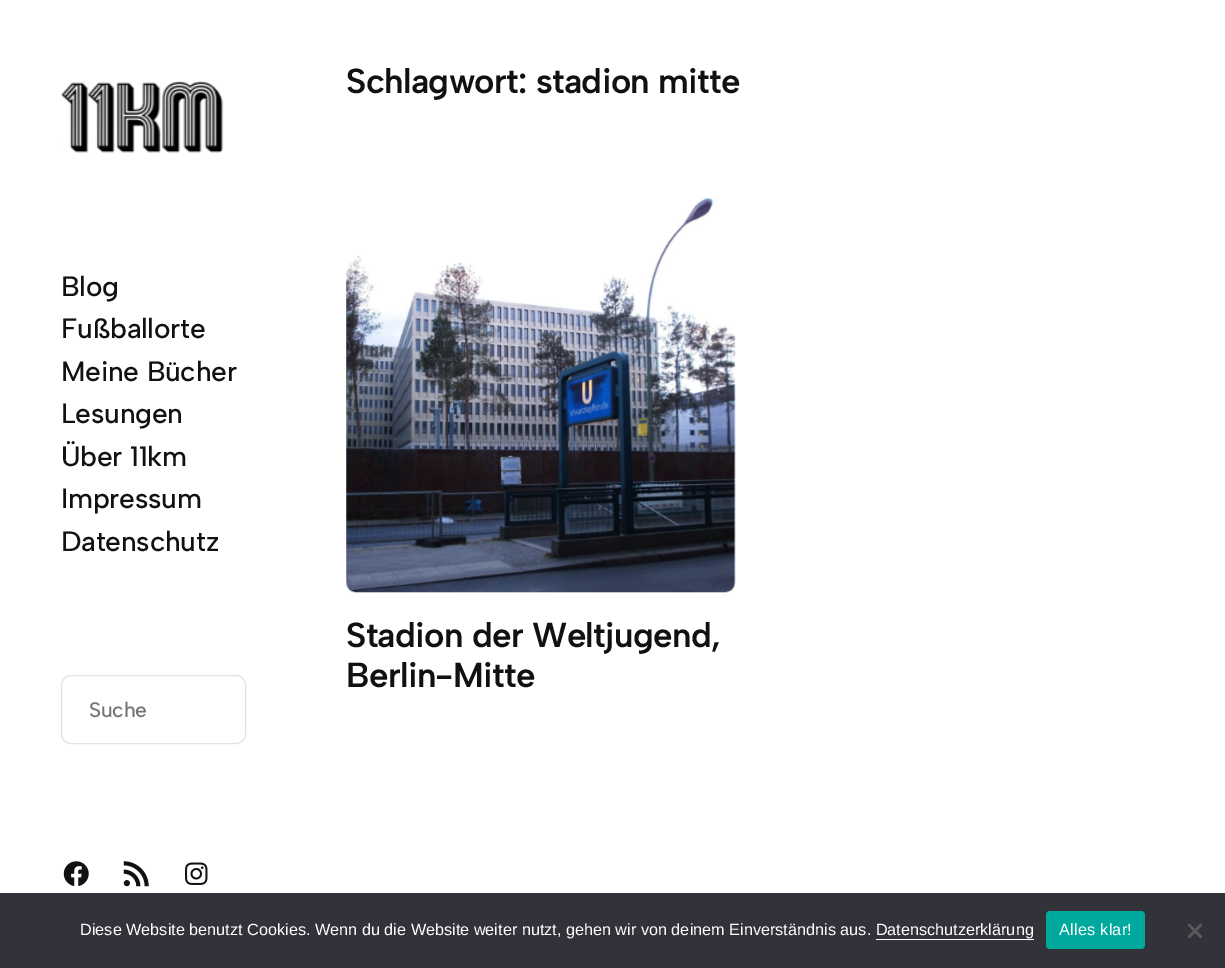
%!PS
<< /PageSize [1225 968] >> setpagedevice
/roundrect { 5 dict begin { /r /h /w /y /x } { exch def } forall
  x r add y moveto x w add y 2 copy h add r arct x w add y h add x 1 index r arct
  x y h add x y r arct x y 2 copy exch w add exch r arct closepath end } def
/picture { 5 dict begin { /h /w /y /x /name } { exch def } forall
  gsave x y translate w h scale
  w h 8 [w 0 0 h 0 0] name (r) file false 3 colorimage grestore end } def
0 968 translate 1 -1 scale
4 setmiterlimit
1 setgray
0 0 1225 968 rectfill
(img1.rgb) 61 81 163 72 picture
/AlbertSans-Medium [28 0 0 -28 0 0] selectfont
0.067 setgray
61 296 moveto -0.25 0 (Blog) ashow
61 338 moveto -0.25 0 (Fußballorte) ashow
61 381 moveto -0.25 0 (Meine Bücher) ashow
61 423 moveto -0.25 0 (Lesungen) ashow
61 466 moveto -0.25 0 (Über 11km) ashow
61 508 moveto -0.25 0 (Impressum) ashow
61 551 moveto -0.25 0 (Datenschutz) ashow
0.886 setgray
61.5 675.5 184 68 9.5 roundrect stroke
/AlbertSans-Medium [21 0 0 -21 0 0] selectfont
0.459 setgray
89 717 moveto -0.25 0 (Suche) ashow
(img2.rgb) 63 861 26 26 picture
(img3.rgb) 123 861 26 26 picture
(img4.rgb) 185 862 23 23 picture
/AlbertSans-SemiBold [34.8 0 0 -34.8 0 0] selectfont
0.067 setgray
346 93 moveto -0.7 0 (Schlagwort: stadion mitte) ashow
(img5.rgb) 346 197 390 396 picture
346 647 moveto -0.7 0 (Stadion der Weltjugend,) ashow
346 687 moveto -0.7 0 (Berlin-Mitte) ashow
0.196 0.196 0.227 setrgbcolor
0 893 1225 75 rectfill
/LiberationSans-Regular [16.25 0 0 -16.25 0 0] selectfont
1 setgray
80 935 moveto (Diese Website benutzt Cookies. Wenn du die Website weiter nutzt, gehen wir von deinem Einverständnis aus. Datenschutzerklärung) show
876 939 158 1 rectfill
0 0.663 0.616 setrgbcolor
1046 911 99 38 4 roundrect fill
1 setgray
1059 935 moveto 0.25 0 (Alles klar!) ashow
0.349 0.349 0.365 setrgbcolor
newpath 1200.5 923.5 moveto 1202.5 925 lineto 1189.5 938.5 lineto 1187.5 936.5 lineto closepath fill
newpath 1187.5 925 moveto 1189.5 923.5 lineto 1202.5 936.5 lineto 1200.5 938.5 lineto closepath fill
showpage
